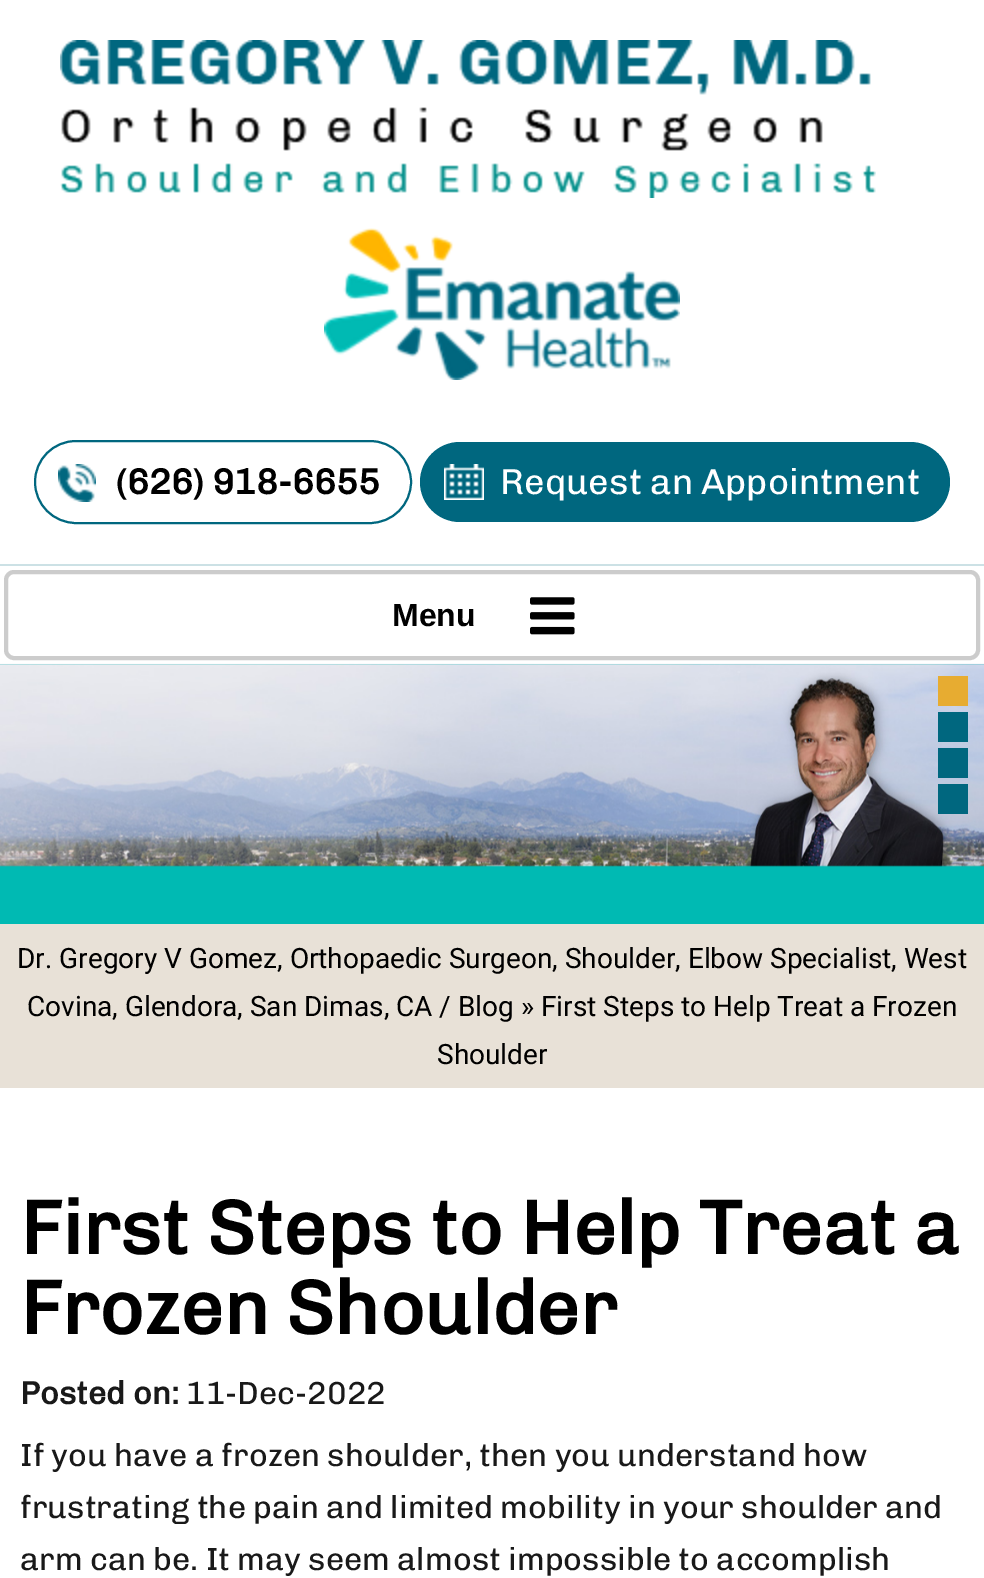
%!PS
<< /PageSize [984 1578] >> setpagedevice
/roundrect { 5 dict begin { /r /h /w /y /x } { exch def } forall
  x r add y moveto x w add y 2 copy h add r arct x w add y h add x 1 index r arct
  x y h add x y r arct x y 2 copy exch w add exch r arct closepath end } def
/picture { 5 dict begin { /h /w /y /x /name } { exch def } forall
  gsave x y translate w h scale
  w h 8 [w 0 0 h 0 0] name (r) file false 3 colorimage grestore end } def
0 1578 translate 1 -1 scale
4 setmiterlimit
1 setgray
0 0 984 1578 rectfill
(img1.rgb) 60 40 816 158 picture
(img2.rgb) 324 228 356 152 picture
0 0.404 0.498 setrgbcolor
2 setlinewidth
35 441 376 82 41 roundrect stroke
(img3.rgb) 58 464 38 38 picture
/Chivo-Bold [36 0 0 -36 0 0] selectfont
0 setgray
116 494 moveto (\(626\) 918-6655) show
0 0.404 0.498 setrgbcolor
420 442 530 80 40 roundrect fill
(img4.rgb) 444 464 40 36 picture
/Chivo-Medium [36 0 0 -36 0 0] selectfont
1 setgray
500 494 moveto (Request an Appointment) show
0.8 0.882 0.898 setrgbcolor
0 564 984 2 rectfill
0.8 setgray
4 setlinewidth
6 572 972 86 8 roundrect stroke
/LiberationSans-Bold [32 0 0 -32 0 0] selectfont
0 setgray
392 626 moveto (Menu) show
(img5.rgb) 530 597 45 38 picture
0 0.729 0.702 setrgbcolor
0 664 984 260 rectfill
(img6.rgb) 0 663 984 204 picture
0.906 0.675 0.192 setrgbcolor
938 676 30 30 rectfill
0 0.404 0.498 setrgbcolor
938 712 30 30 rectfill
938 748 30 30 rectfill
938 784 30 30 rectfill
0.91 0.882 0.843 setrgbcolor
0 924 984 164 rectfill
/Roboto-Regular [28 0 0 -28 0 0] selectfont
0 setgray
17 968 moveto (Dr. Gregory V Gomez, Orthopaedic Surgeon, Shoulder, Elbow Specialist, West) show
27 1016 moveto (Covina, Glendora, San Dimas, CA / Blog » First Steps to Help Treat a Frozen) show
437 1064 moveto (Shoulder) show
/Chivo-Bold [76 0 0 -76 0 0] selectfont
20 1254 moveto (First Steps to Help Treat a) show
20 1334 moveto (Frozen Shoulder) show
/Chivo-Bold [32 0 0 -32 0 0] selectfont
0.098 setgray
20 1404 moveto (Posted on:) show
/Chivo-Medium [32 0 0 -32 0 0] selectfont
186 1404 moveto (11-Dec-2022) show
20 1466 moveto (If you have a frozen shoulder, then you understand how) show
20 1518 moveto (frustrating the pain and limited mobility in your shoulder and) show
20 1570 moveto (arm can be. It may seem almost impossible to accomplish) show
showpage
